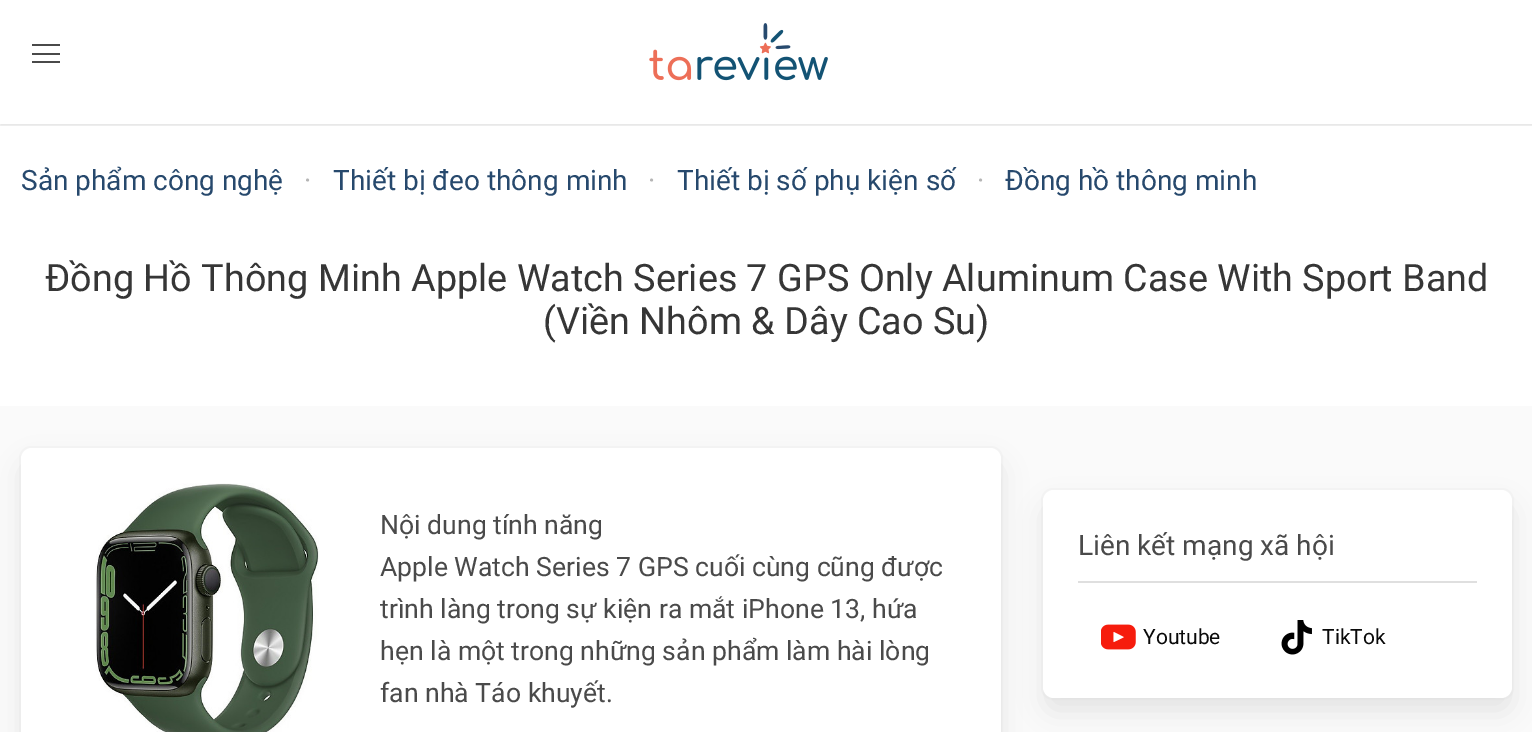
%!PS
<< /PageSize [1532 732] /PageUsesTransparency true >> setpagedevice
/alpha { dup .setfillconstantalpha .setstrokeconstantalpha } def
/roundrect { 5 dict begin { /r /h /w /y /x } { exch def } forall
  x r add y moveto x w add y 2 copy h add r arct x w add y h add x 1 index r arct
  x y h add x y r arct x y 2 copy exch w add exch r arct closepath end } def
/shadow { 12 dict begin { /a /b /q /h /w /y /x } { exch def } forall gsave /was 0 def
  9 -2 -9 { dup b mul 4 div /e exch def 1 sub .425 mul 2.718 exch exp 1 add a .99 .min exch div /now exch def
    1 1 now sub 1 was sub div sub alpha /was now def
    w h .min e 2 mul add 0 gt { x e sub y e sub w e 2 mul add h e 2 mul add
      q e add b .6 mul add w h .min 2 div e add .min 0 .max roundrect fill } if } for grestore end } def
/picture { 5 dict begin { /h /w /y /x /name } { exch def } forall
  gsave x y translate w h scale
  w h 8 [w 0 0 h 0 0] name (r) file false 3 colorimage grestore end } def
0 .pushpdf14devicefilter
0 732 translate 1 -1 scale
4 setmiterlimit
1 setgray
0 0 1532 732 rectfill
gsave
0 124 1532 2 rectclip
0 setgray
0 2 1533 124 0 1 0.1 shadow
grestore
0.29 setgray
32 44 28 2 rectfill
32 53 28 2 rectfill
32 61 28 2 rectfill
(img1.rgb) 649 23 179 58 picture
0.98 setgray
0 406 1532 326 rectfill
1 setgray
0 126 1532 1 rectfill
/Roboto-Regular [28 0 0 -28 0 0] selectfont
0.153 0.286 0.427 setrgbcolor
21 190 moveto (Sản phẩm công nghệ) show
0.71 setgray
304 190 moveto (·) show
0.153 0.286 0.427 setrgbcolor
333 190 moveto (Thiết bị đeo thông minh) show
0.71 setgray
648 190 moveto (·) show
0.153 0.286 0.427 setrgbcolor
677 190 moveto (Thiết bị số phụ kiện số) show
0.71 setgray
977 190 moveto (·) show
0.153 0.286 0.427 setrgbcolor
1005 190 moveto (Đồng hồ thông minh) show
/Roboto-Regular [37.8 0 0 -37.8 0 0] selectfont
0.212 setgray
45 291 moveto (Đồng Hồ Thông Minh Apple Watch Series 7 GPS Only Aluminum Case With Sport Band) show
543 334 moveto (\(Viền Nhôm & Dây Cao Su\)) show
0.961 setgray
2 setlinewidth
20 447 982 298 11 roundrect stroke
0.039 setgray
25 466 973 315 7 14 0.1 shadow
1 setgray
21 448 980 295 11 roundrect fill
(img2.rgb) 95 483 224 249 picture
/Roboto-Regular [26.6 0 0 -26.6 0 0] selectfont
0.29 setgray
380 534 moveto (Nội dung tính năng) show
380 576 moveto (Apple Watch Series 7 GPS cuối cùng cũng được) show
380 618 moveto (trình làng trong sự kiện ra mắt iPhone 13, hứa) show
380 660 moveto (hẹn là một trong những sản phẩm làm hài lòng) show
380 702 moveto (fan nhà Táo khuyết.) show
0.961 setgray
1042 489 471 210 11 roundrect stroke
0.039 setgray
1047 508 462 201 7 14 0.1 shadow
1 setgray
1043 490 469 208 11 roundrect fill
/Roboto-Regular [28 0 0 -28 0 0] selectfont
0.29 setgray
1078 555 moveto (Liên kết mạng xã hội) show
0.875 setgray
1078 581 399 2 rectfill
(img3.rgb) 1101 624 35 26 picture
/Roboto-Regular [21 0 0 -21 0 0] selectfont
0.039 setgray
1143 644 moveto (Youtube) show
(img4.rgb) 1281 620 31 35 picture
1322 644 moveto (TikTok) show
.poppdf14devicefilter showpage
